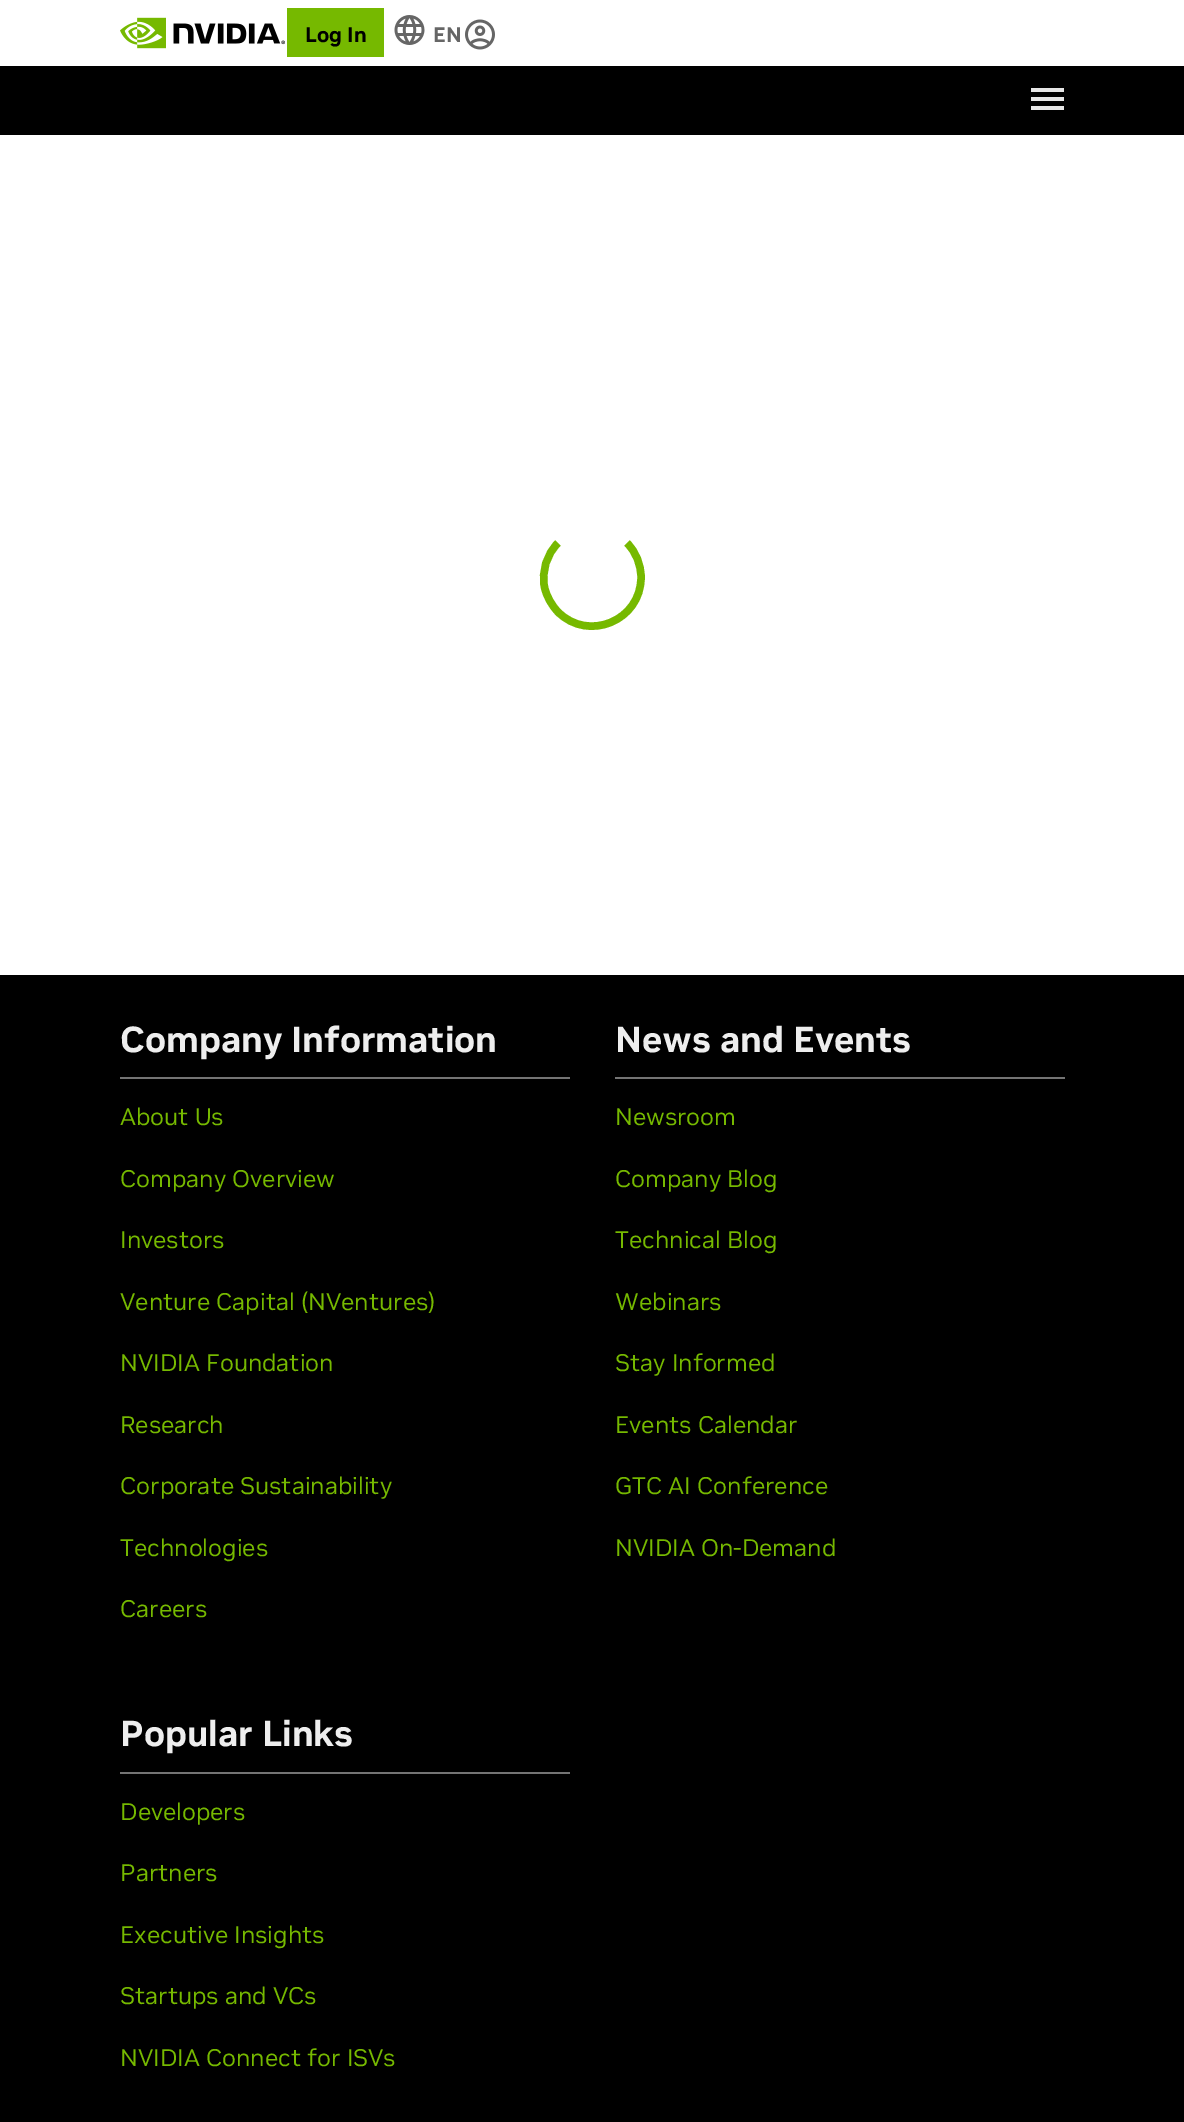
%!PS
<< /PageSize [1184 2122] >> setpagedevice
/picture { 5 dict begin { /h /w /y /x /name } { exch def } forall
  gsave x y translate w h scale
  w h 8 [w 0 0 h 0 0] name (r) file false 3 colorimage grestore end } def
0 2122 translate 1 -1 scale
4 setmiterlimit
1 setgray
0 0 1184 2122 rectfill
(img1.rgb) 120 17 165 32 picture
0.463 0.725 0 setrgbcolor
287 8 97 49 rectfill
/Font-Bold [21 0 0 -21 0 0] selectfont
0 setgray
305 42 moveto (Log In) show
(img2.rgb) 394 15 31 30 picture
0.4 setgray
433 42 moveto (EN) show
(img3.rgb) 465 19 30 31 picture
0 setgray
0 66 1184 69 rectfill
0.902 setgray
1031 88 33 4 rectfill
1031 97 33 4 rectfill
1031 106 33 4 rectfill
0.463 0.725 0 setrgbcolor
7.5 setlinewidth
newpath 627 543 moveto 636 552 641 564.5 641 577.5 curveto 641 620.5 588.5 642.5 558 612 curveto 551.5 605 546.5 596.5 544.5 587 curveto 541.5 571 546.5 554.5 558 543 curveto stroke
0 setgray
0 975 1184 1147 rectfill
0.455 setgray
120 1077 450 2 rectfill
/Font-Bold [36 0 0 -36 0 0] selectfont
0.933 setgray
120 1052 moveto (Company Information) show
/Font-Regular [24 0 0 -24 0 0] selectfont
0.463 0.725 0 setrgbcolor
120 1125 moveto (About Us) show
120 1187 moveto (Company Overview) show
120 1248 moveto (Investors) show
120 1310 moveto (Venture Capital \(NVentures\)) show
120 1371 moveto (NVIDIA Foundation) show
120 1433 moveto (Research) show
120 1494 moveto (Corporate Sustainability) show
120 1556 moveto (Technologies) show
120 1617 moveto (Careers) show
0.455 setgray
615 1077 450 2 rectfill
/Font-Bold [36 0 0 -36 0 0] selectfont
0.933 setgray
615 1052 moveto (News and Events) show
/Font-Regular [24 0 0 -24 0 0] selectfont
0.463 0.725 0 setrgbcolor
615 1125 moveto (Newsroom) show
615 1187 moveto (Company Blog) show
615 1248 moveto (Technical Blog) show
615 1310 moveto (Webinars) show
615 1371 moveto (Stay Informed) show
615 1433 moveto (Events Calendar) show
615 1494 moveto (GTC AI Conference) show
615 1556 moveto (NVIDIA On-Demand) show
0.455 setgray
120 1772 450 2 rectfill
/Font-Bold [36 0 0 -36 0 0] selectfont
0.933 setgray
120 1746 moveto (Popular Links) show
/Font-Regular [24 0 0 -24 0 0] selectfont
0.463 0.725 0 setrgbcolor
120 1820 moveto (Developers) show
120 1881 moveto (Partners) show
120 1943 moveto (Executive Insights) show
120 2004 moveto (Startups and VCs) show
120 2066 moveto (NVIDIA Connect for ISVs) show
showpage
